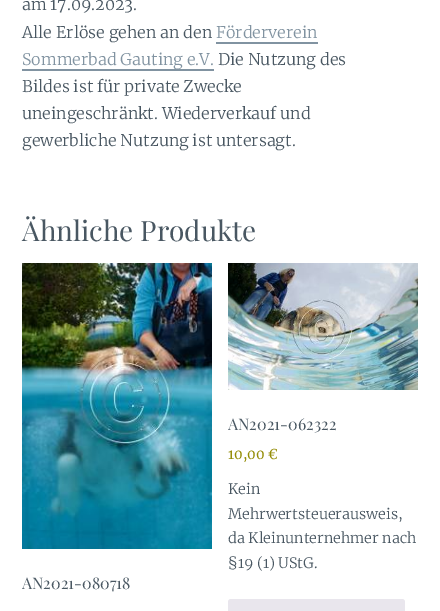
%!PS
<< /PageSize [440 611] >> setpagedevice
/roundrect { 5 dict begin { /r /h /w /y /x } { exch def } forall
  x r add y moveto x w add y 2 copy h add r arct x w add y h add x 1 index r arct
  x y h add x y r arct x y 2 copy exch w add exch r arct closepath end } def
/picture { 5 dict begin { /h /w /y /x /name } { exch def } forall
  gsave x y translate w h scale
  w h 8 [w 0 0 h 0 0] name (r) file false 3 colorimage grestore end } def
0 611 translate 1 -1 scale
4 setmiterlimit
1 setgray
0 0 440 611 rectfill
/Merriweather-Light [16 0 0 -16 0 0] selectfont
0.286 0.341 0.384 setrgbcolor
22 10 moveto (am 17.09.2023.) show
22 38 moveto (Alle Erlöse gehen an den) show
0.506 0.576 0.631 setrgbcolor
216 38 moveto (Förderverein) show
216 42 102 2 rectfill
22 69 192 2 rectfill
22 65 moveto (Sommerbad Gauting e.V.) show
0.286 0.341 0.384 setrgbcolor
218 65 moveto (Die Nutzung des) show
22 92 moveto (Bildes ist für private Zwecke) show
22 119 moveto (uneingeschränkt. Wiederverkauf und) show
22 146 moveto (gewerbliche Nutzung ist untersagt.) show
/PlayfairDisplay-Regular [28 0 0 -28 0 0] selectfont
22 241 moveto (Ähnliche Produkte) show
(img1.rgb) 228 263 190 127 picture
/PlayfairDisplay-Regular [16 0 0 -16 0 0] selectfont
228 430 moveto (AN2021-062322) show
/Merriweather-Regular [13.5 0 0 -13.5 0 0] selectfont
0.584 0.557 0.035 setrgbcolor
228 459 moveto (10,00 €) show
/Merriweather-Light [14.4 0 0 -14.4 0 0] selectfont
0.286 0.341 0.384 setrgbcolor
228 494 moveto (Kein) show
228 519 moveto (Mehrwertsteuerausweis,) show
228 543 moveto (da Kleinunternehmer nach) show
228 568 moveto (§19 \(1\) UStG.) show
0.914 0.902 0.929 setrgbcolor
228 599 177 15 3 roundrect fill
(img2.rgb) 22 263 190 286 picture
/PlayfairDisplay-Regular [16 0 0 -16 0 0] selectfont
0.286 0.341 0.384 setrgbcolor
22 589 moveto (AN2021-080718) show
showpage
